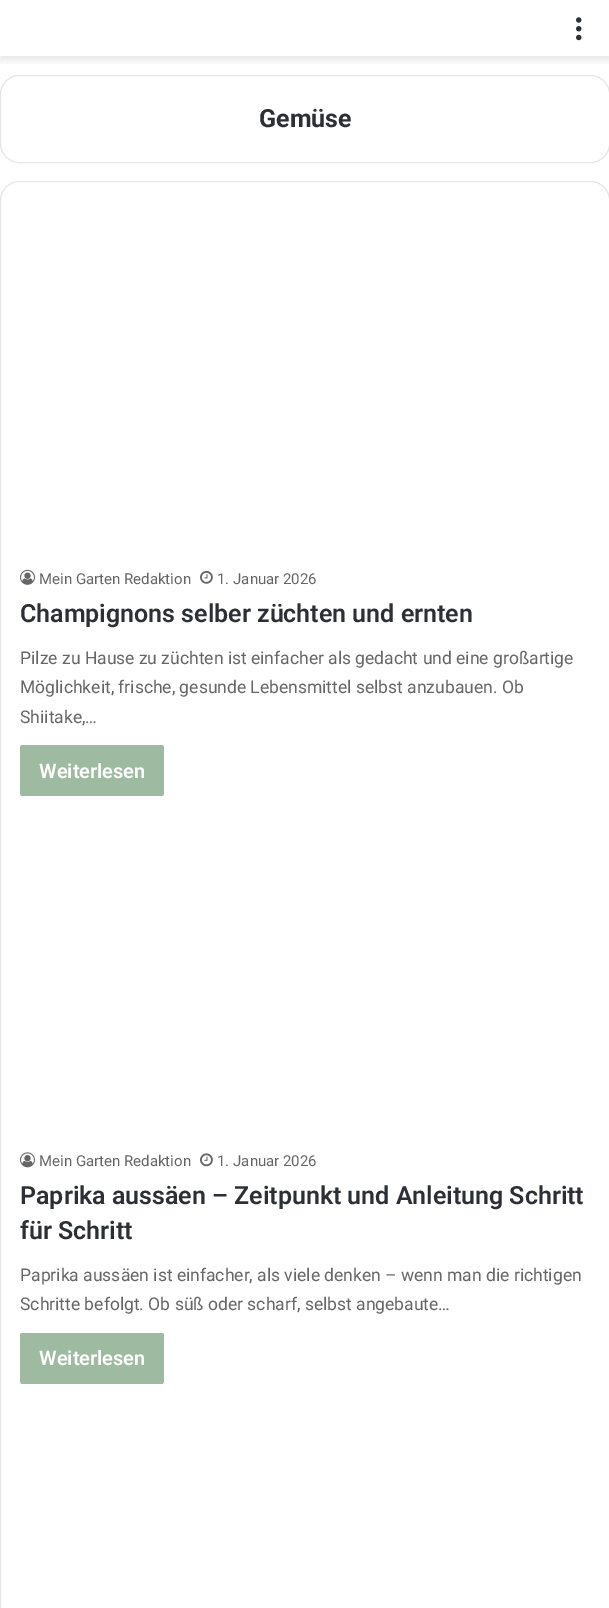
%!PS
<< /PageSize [609 1608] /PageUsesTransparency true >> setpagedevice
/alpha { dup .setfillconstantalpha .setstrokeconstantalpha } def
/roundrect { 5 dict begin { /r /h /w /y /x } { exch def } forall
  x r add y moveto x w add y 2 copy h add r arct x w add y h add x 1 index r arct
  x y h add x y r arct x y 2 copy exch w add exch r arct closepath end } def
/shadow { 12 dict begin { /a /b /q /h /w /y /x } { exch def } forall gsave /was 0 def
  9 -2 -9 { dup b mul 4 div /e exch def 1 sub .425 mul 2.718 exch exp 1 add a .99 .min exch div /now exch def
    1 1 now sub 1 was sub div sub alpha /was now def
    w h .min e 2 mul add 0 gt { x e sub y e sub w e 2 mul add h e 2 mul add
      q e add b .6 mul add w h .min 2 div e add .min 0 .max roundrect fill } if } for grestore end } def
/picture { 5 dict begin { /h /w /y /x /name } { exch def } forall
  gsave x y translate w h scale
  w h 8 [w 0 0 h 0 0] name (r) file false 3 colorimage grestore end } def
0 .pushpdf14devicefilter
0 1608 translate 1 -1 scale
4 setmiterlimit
1 setgray
0 0 609 1608 rectfill
gsave
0 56 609 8 rectclip
0 setgray
0 4 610 56 0 4.5 0.1 shadow
grestore
(img1.rgb) 576 17 6 24 picture
0.902 setgray
0.5 75.5 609 87 18.5 roundrect stroke
/Roboto-Bold [25 0 0 -25 0 0] selectfont
0.173 0.184 0.204 setrgbcolor
259 127 moveto (Gemüse) show
0.902 setgray
0.5 181.5 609 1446 18.5 roundrect stroke
(img2.rgb) 20 569 15 16 picture
/Roboto-Regular [15 0 0 -15 0 0] selectfont
0.4 setgray
39 584 moveto (Mein Garten Redaktion) show
(img3.rgb) 200 570 13 14 picture
217 584 moveto (1. Januar 2026) show
/Roboto-SemiBold [25 0 0 -25 0 0] selectfont
0.173 0.184 0.204 setrgbcolor
20 622 moveto (Champignons selber züchten und ernten) show
/Roboto-Regular [17.5 0 0 -17.5 0 0] selectfont
0.4 setgray
20 664 moveto (Pilze zu Hause zu züchten ist einfacher als gedacht und eine großartige) show
20 693 moveto (Möglichkeit, frische, gesunde Lebensmittel selbst anzubauen. Ob) show
20 723 moveto (Shiitake,…) show
0.62 0.729 0.627 setrgbcolor
20 745 144 51 2.5 roundrect fill
/Roboto-SemiBold [20 0 0 -20 0 0] selectfont
1 setgray
39 778 moveto (Weiterlesen) show
(img4.rgb) 20 1152 15 16 picture
/Roboto-Regular [15 0 0 -15 0 0] selectfont
0.4 setgray
39 1166 moveto (Mein Garten Redaktion) show
(img5.rgb) 200 1153 13 14 picture
217 1166 moveto (1. Januar 2026) show
/Roboto-SemiBold [25 0 0 -25 0 0] selectfont
0.173 0.184 0.204 setrgbcolor
20 1204 moveto (Paprika aussäen – Zeitpunkt und Anleitung Schritt) show
20 1239 moveto (für Schritt) show
/Roboto-Regular [17.5 0 0 -17.5 0 0] selectfont
0.4 setgray
20 1281 moveto (Paprika aussäen ist einfacher, als viele denken – wenn man die richtigen) show
20 1310 moveto (Schritte befolgt. Ob süß oder scharf, selbst angebaute…) show
0.62 0.729 0.627 setrgbcolor
20 1333 144 51 2.5 roundrect fill
/Roboto-SemiBold [20 0 0 -20 0 0] selectfont
1 setgray
39 1365 moveto (Weiterlesen) show
.poppdf14devicefilter showpage
